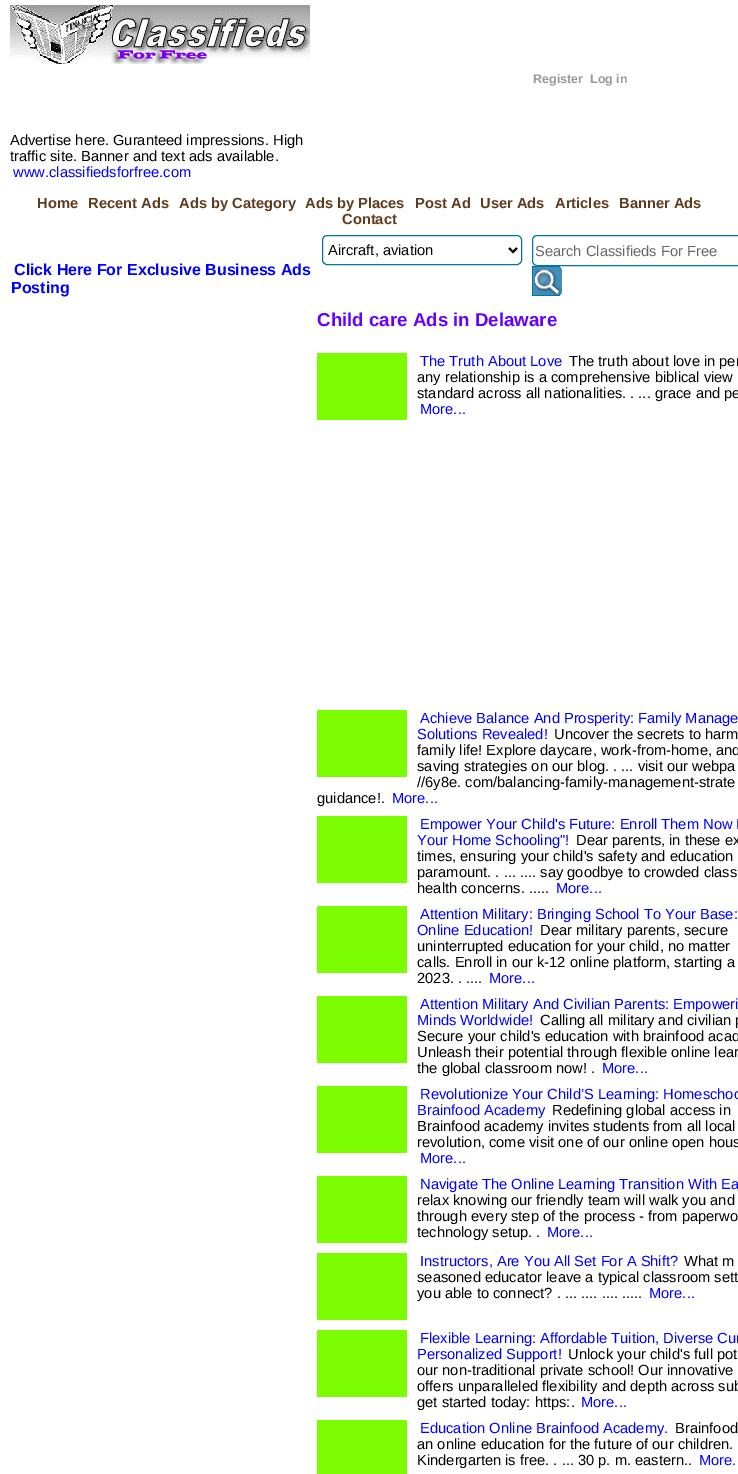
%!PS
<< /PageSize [738 1474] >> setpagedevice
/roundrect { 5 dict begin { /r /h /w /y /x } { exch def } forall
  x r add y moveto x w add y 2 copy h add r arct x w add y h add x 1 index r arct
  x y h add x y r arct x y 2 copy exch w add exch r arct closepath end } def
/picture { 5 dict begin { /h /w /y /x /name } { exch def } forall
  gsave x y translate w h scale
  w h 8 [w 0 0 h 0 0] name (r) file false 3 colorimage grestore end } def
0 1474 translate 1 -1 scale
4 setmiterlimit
1 setgray
0 0 738 1474 rectfill
(img1.rgb) 10 5 300 59 picture
/LiberationSans-Bold [12.5 0 0 -12.5 0 0] selectfont
0.6 setgray
533 83 moveto (Register) show
590 83 moveto (Log in) show
/LiberationSans-Regular [14.7 0 0 -14.7 0 0] selectfont
0 setgray
10 145 moveto (Advertise here. Guranteed impressions. High) show
10 161 moveto (traffic site. Banner and text ads available.) show
0 0 1 setrgbcolor
13 177 moveto (www.classifiedsforfree.com) show
/LiberationSans-Bold [14.7 0 0 -14.7 0 0] selectfont
0.373 0.231 0.118 setrgbcolor
37 208 moveto (Home) show
88 208 moveto (Recent Ads) show
179 208 moveto (Ads by Category) show
305 208 moveto (Ads by Places) show
415 208 moveto (Post Ad) show
480 208 moveto (User Ads) show
555 208 moveto (Articles) show
619 208 moveto (Banner Ads) show
342 224 moveto (Contact) show
/LiberationSans-Bold [16 0 0 -16 0 0] selectfont
0 0 1 setrgbcolor
14 275 moveto (Click Here For Exclusive Business Ads) show
11 293 moveto (Posting) show
0 0.463 0.639 setrgbcolor
322.5 235.5 199 29 4.5 roundrect stroke
0 setgray
2 setlinewidth
newpath 509 248 moveto 513 252 lineto 517 248 lineto stroke
/LiberationSans-Regular [14.7 0 0 -14.7 0 0] selectfont
328 255 moveto (Aircraft, aviation) show
0 0.463 0.639 setrgbcolor
1 setlinewidth
newpath 537 235.5 moveto 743.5 235.5 lineto 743.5 265.5 lineto 537 265.5 lineto 534.5 265.5 532.5 263.5 532.5 261 curveto 532.5 240 lineto 532.5 237.5 534.5 235.5 537 235.5 curveto closepath stroke
0.4 setgray
535 256 moveto (Search Classifieds For Free) show
0.263 0.553 0.722 setrgbcolor
newpath 532 266 moveto 557 266 lineto 560 266 562 268 562 271 curveto 562 291 lineto 562 294 560 296 557 296 curveto 532 296 lineto closepath fill
(img2.rgb) 535 267 27 28 picture
0 0.463 0.639 setrgbcolor
532 266 28 1 rectfill
532 295 28 1 rectfill
532 266 1 30 rectfill
/LiberationSans-Bold [18.7 0 0 -18.7 0 0] selectfont
0.4 0 1 setrgbcolor
317 326 moveto (Child care Ads in Delaware) show
0.486 0.988 0 setrgbcolor
317 353 90 67 rectfill
/LiberationSans-Regular [14.7 0 0 -14.7 0 0] selectfont
0 0 1 setrgbcolor
420 366 moveto (The Truth About Love) show
0 setgray
569 366 moveto (The truth about love in per) show
417 382 moveto (any relationship is a comprehensive biblical view) show
417 398 moveto (standard across all nationalities. . ... grace and pe) show
0 0 1 setrgbcolor
420 414 moveto (More...) show
0.486 0.988 0 setrgbcolor
317 710 90 67 rectfill
0 0 1 setrgbcolor
420 723 moveto (Achieve Balance And Prosperity: Family Manage) show
417 739 moveto (Solutions Revealed!) show
0 setgray
554 739 moveto (Uncover the secrets to harm) show
417 755 moveto (family life! Explore daycare, work-from-home, and) show
417 771 moveto (saving strategies on our blog. . ... visit our webpa) show
417 787 moveto (//6y8e. com/balancing-family-management-strate) show
317 803 moveto (guidance!.) show
0 0 1 setrgbcolor
392 803 moveto (More...) show
0.486 0.988 0 setrgbcolor
317 816 90 67 rectfill
0 0 1 setrgbcolor
420 829 moveto (Empower Your Child's Future: Enroll Them Now I) show
417 845 moveto (Your Home Schooling"!) show
0 setgray
576 845 moveto (Dear parents, in these ex) show
417 861 moveto (times, ensuring your child's safety and education) show
417 877 moveto (paramount. . ... .... say goodbye to crowded class) show
417 893 moveto (health concerns. .....) show
0 0 1 setrgbcolor
556 893 moveto (More...) show
0.486 0.988 0 setrgbcolor
317 906 90 67 rectfill
0 0 1 setrgbcolor
420 919 moveto (Attention Military: Bringing School To Your Base:) show
417 935 moveto (Online Education!) show
0 setgray
540 935 moveto (Dear military parents, secure) show
417 951 moveto (uninterrupted education for your child, no matter) show
417 967 moveto (calls. Enroll in our k-12 online platform, starting a) show
417 983 moveto (2023. . ....) show
0 0 1 setrgbcolor
489 983 moveto (More...) show
0.486 0.988 0 setrgbcolor
317 996 90 67 rectfill
0 0 1 setrgbcolor
420 1009 moveto (Attention Military And Civilian Parents: Empoweri) show
417 1025 moveto (Minds Worldwide!) show
0 setgray
540 1025 moveto (Calling all military and civilian p) show
417 1041 moveto (Secure your child's education with brainfood acad) show
417 1057 moveto (Unleash their potential through flexible online lear) show
417 1073 moveto (the global classroom now! .) show
0 0 1 setrgbcolor
602 1073 moveto (More...) show
0.486 0.988 0 setrgbcolor
317 1086 90 67 rectfill
0 0 1 setrgbcolor
420 1099 moveto (Revolutionize Your Child’S Learning: Homeschoo) show
417 1115 moveto (Brainfood Academy) show
0 setgray
552 1115 moveto (Redefining global access in) show
417 1131 moveto (Brainfood academy invites students from all local) show
417 1147 moveto (revolution, come visit one of our online open hous) show
0 0 1 setrgbcolor
420 1163 moveto (More...) show
0.486 0.988 0 setrgbcolor
317 1176 90 67 rectfill
0 0 1 setrgbcolor
420 1189 moveto (Navigate The Online Learning Transition With Ea) show
0 setgray
417 1205 moveto (relax knowing our friendly team will walk you and) show
417 1221 moveto (through every step of the process - from paperwo) show
417 1237 moveto (technology setup. .) show
0 0 1 setrgbcolor
547 1237 moveto (More...) show
0.486 0.988 0 setrgbcolor
317 1253 90 67 rectfill
0 0 1 setrgbcolor
420 1266 moveto (Instructors, Are You All Set For A Shift?) show
0 setgray
684 1266 moveto (What m) show
417 1282 moveto (seasoned educator leave a typical classroom sett) show
417 1298 moveto (you able to connect? . ... .... .... .....) show
0 0 1 setrgbcolor
649 1298 moveto (More...) show
0.486 0.988 0 setrgbcolor
317 1330 90 67 rectfill
0 0 1 setrgbcolor
420 1343 moveto (Flexible Learning: Affordable Tuition, Diverse Cur) show
417 1359 moveto (Personalized Support!) show
0 setgray
568 1359 moveto (Unlock your child's full pot) show
417 1375 moveto (our non-traditional private school! Our innovative) show
417 1391 moveto (offers unparalleled flexibility and depth across sub) show
417 1407 moveto (get started today: https:.) show
0 0 1 setrgbcolor
581 1407 moveto (More...) show
0.486 0.988 0 setrgbcolor
317 1420 90 54 rectfill
0 0 1 setrgbcolor
420 1433 moveto (Education Online Brainfood Academy.) show
0 setgray
675 1433 moveto (Brainfood) show
417 1449 moveto (an online education for the future of our children.) show
417 1465 moveto (Kindergarten is free. . ... 30 p. m. eastern..) show
0 0 1 setrgbcolor
699 1465 moveto (More.) show
showpage
